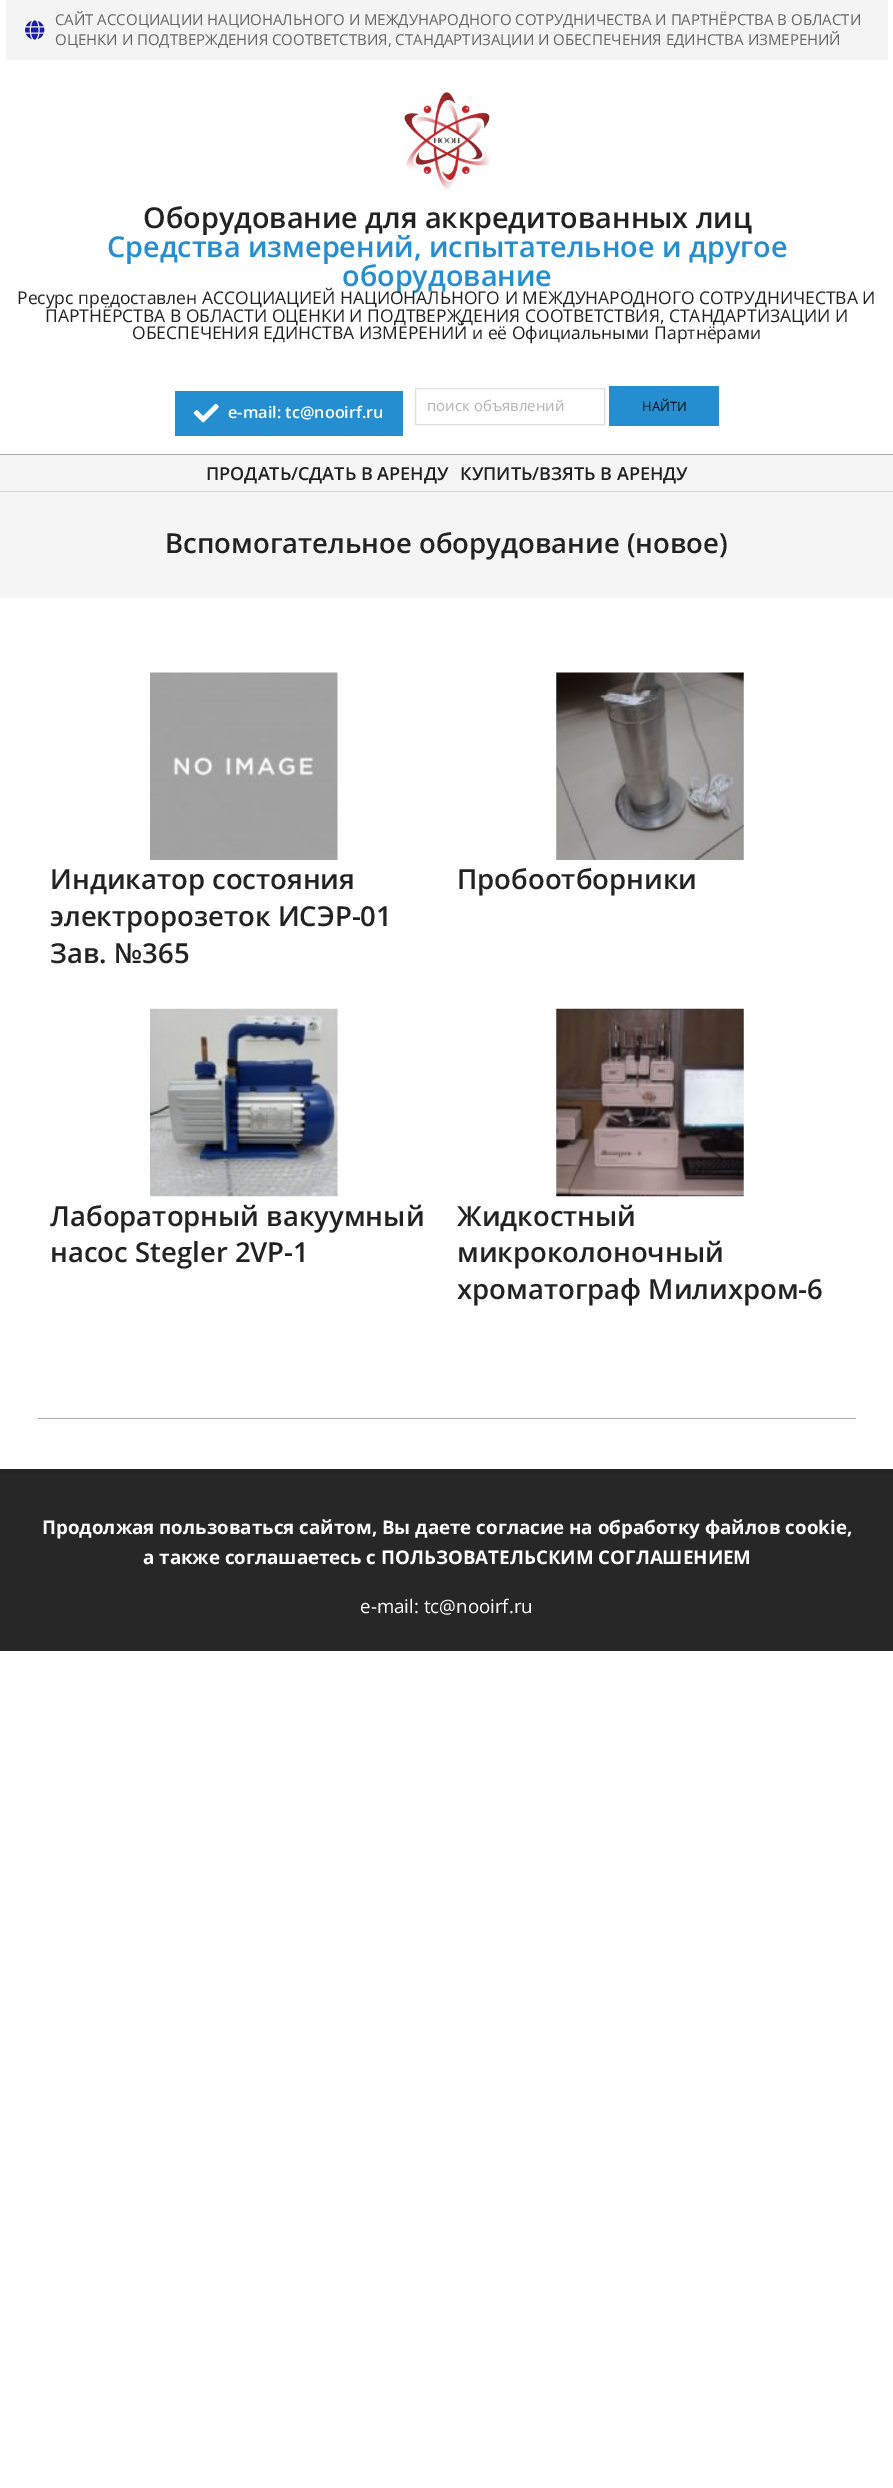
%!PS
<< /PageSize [893 2488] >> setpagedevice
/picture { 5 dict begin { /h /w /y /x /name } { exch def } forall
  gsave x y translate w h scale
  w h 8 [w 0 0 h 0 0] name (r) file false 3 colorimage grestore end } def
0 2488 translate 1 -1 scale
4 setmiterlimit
1 setgray
0 0 893 2488 rectfill
0.957 setgray
6 0 882 60 rectfill
(img1.rgb) 25 20 20 20 picture
/OpenSans-Regular [15 0 0 -15 0 0] selectfont
0.4 setgray
55 25 moveto (САЙТ АССОЦИАЦИИ НАЦИОНАЛЬНОГО И МЕЖДУНАРОДНОГО СОТРУДНИЧЕСТВА И ПАРТНЁРСТВА В ОБЛАСТИ) show
55 45 moveto (ОЦЕНКИ И ПОДТВЕРЖДЕНИЯ СООТВЕТСТВИЯ, СТАНДАРТИЗАЦИИ И ОБЕСПЕЧЕНИЯ ЕДИНСТВА ИЗМЕРЕНИЙ) show
0.671 setgray
0 454 893 1 rectfill
(img2.rgb) 404 92 86 98 picture
/OpenSans-SemiBold [28.75 0 0 -28.75 0 0] selectfont
0.133 setgray
143 228 moveto (Оборудование для аккредитованных лиц) show
0.141 0.557 0.816 setrgbcolor
107 257 moveto (Средства измерений, испытательное и другое) show
342 286 moveto (оборудование) show
/OpenSans-Regular [17.5 0 0 -17.5 0 0] selectfont
0.133 setgray
17 304 moveto (Ресурс предоставлен АССОЦИАЦИЕЙ НАЦИОНАЛЬНОГО И МЕЖДУНАРОДНОГО СОТРУДНИЧЕСТВА И) show
45 322 moveto (ПАРТНЁРСТВА В ОБЛАСТИ ОЦЕНКИ И ПОДТВЕРЖДЕНИЯ СООТВЕТСТВИЯ, СТАНДАРТИЗАЦИИ И) show
132 339 moveto (ОБЕСПЕЧЕНИЯ ЕДИНСТВА ИЗМЕРЕНИЙ и её Официальными Партнёрами) show
0.141 0.557 0.816 setrgbcolor
175 391 228 45 rectfill
(img3.rgb) 193 403 26 20 picture
/OpenSans-SemiBold [16.25 0 0 -16.25 0 0] selectfont
1 setgray
228 418 moveto (e-mail: tc@nooirf.ru) show
0.867 setgray
415.5 388.5 189 36 rectstroke
/OpenSans-Regular [15 0 0 -15 0 0] selectfont
0.702 setgray
427 411 moveto (поиск объявлений) show
0.141 0.557 0.816 setrgbcolor
609 386 110 40 rectfill
/OpenSans-Regular [13 0 0 -13 0 0] selectfont
0.039 setgray
642 411 moveto (НАЙТИ) show
0.961 setgray
0 455 893 143 rectfill
0.827 setgray
0 491 893 1 rectfill
/OpenSans-SemiBold [18 0 0 -18 0 0] selectfont
0.133 setgray
206 480 moveto (ПРОДАТЬ/СДАТЬ В АРЕНДУ) show
460 480 moveto (КУПИТЬ/ВЗЯТЬ В АРЕНДУ) show
/OpenSans-SemiBold [27.5 0 0 -27.5 0 0] selectfont
165 553 moveto (Вспомогательное оборудование \(новое\)) show
0.671 setgray
38 1418 818 1 rectfill
(img4.rgb) 150 672 188 188 picture
0.133 setgray
50 889 moveto (Индикатор состояния) show
50 926 moveto (электророзеток ИСЭР-01) show
50 963 moveto (Зав. №365) show
(img5.rgb) 556 672 188 188 picture
457 889 moveto (Пробоотборники) show
(img6.rgb) 150 1008 188 189 picture
50 1226 moveto (Лабораторный вакуумный) show
50 1262 moveto (насос Stegler 2VP-1) show
(img7.rgb) 556 1008 188 189 picture
457 1226 moveto (Жидкостный) show
457 1262 moveto (микроколоночный) show
457 1299 moveto (хроматограф Милихром-6) show
0.153 setgray
0 1474 893 177 rectfill
0.133 setgray
0 1469 893 5 rectfill
/OpenSans-Bold [18.75 0 0 -18.75 0 0] selectfont
1 setgray
42 1534 moveto (Продолжая пользоваться сайтом, Вы даете согласие на обработку файлов cookie,) show
143 1564 moveto (а также соглашаетесь с ПОЛЬЗОВАТЕЛЬСКИМ СОГЛАШЕНИЕМ) show
/OpenSans-Regular [18.75 0 0 -18.75 0 0] selectfont
360 1613 moveto (e-mail: tc@nooirf.ru) show
showpage
